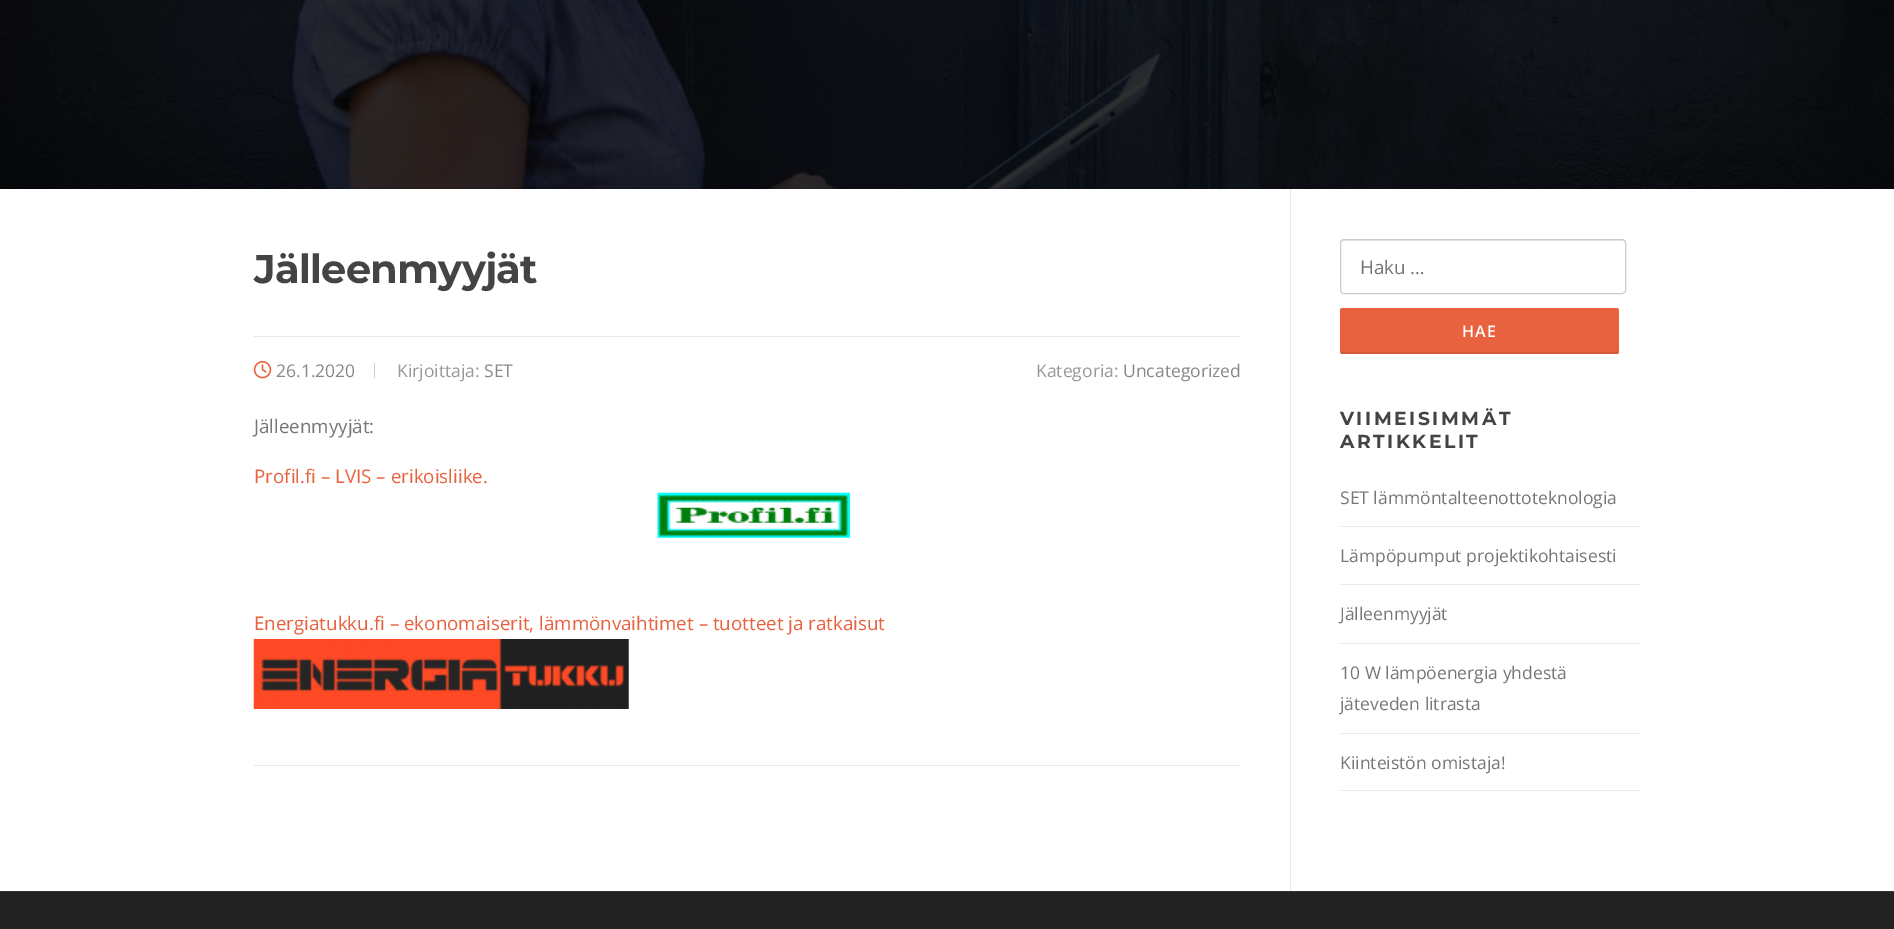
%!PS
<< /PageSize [1894 929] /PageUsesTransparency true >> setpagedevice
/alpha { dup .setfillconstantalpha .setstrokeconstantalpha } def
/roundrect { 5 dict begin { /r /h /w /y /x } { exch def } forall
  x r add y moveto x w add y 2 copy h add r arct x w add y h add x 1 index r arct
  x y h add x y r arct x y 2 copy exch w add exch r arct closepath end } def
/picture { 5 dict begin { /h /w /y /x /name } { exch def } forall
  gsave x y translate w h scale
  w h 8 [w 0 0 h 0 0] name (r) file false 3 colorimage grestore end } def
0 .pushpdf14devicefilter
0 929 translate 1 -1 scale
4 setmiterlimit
1 setgray
0 0 1894 929 rectfill
(img1.rgb) 0 0 1894 189 picture
0.914 setgray
1290 189 1 702 rectfill
/Montserrat-Bold [40 0 0 -40 0 0] selectfont
0.267 setgray
254 283 moveto -0.75 0 (Jälleenmyyjät) ashow
0.914 setgray
254 336 987 1 rectfill
(img2.rgb) 253 360 19 19 picture
/OpenSans-Regular [17.5 0 0 -17.5 0 0] selectfont
0.533 setgray
276 377 moveto (26.1.2020) show
0.8 setgray
374 363 1 15 rectfill
0.6 setgray
397 377 moveto (Kirjoittaja:) show
0.533 setgray
484 377 moveto (SET) show
0.6 setgray
1036 377 moveto (Kategoria:) show
0.533 setgray
1123 377 moveto (Uncategorized) show
/OpenSans-Regular [18.75 0 0 -18.75 0 0] selectfont
0.467 setgray
254 433 moveto (Jälleenmyyjät:) show
0.91 0.384 0.251 setrgbcolor
254 483 moveto (Profil.fi – LVIS – erikoisliike.) show
(img3.rgb) 657 492 193 46 picture
254 630 moveto (Energiatukku.fi – ekonomaiserit, lämmönvaihtimet – tuotteet ja ratkaisut) show
(img4.rgb) 253 639 376 70 picture
0.914 setgray
254 765 987 1 rectfill
0.922 setgray
newpath 1344 241 moveto 1622 241 lineto 1624 241 1625 242 1625 244 curveto 1625 242 1625 240 1622 240 curveto 1344 240 lineto 1341 240 1341 242 1341 244 curveto 1341 242 1342 241 1344 241 curveto closepath fill
0.8 setgray
1340.5 239.5 285 54 3.5 roundrect stroke
0.467 setgray
1360 274 moveto (Haku …) show
0.91 0.384 0.251 setrgbcolor
1340 308 279 46 2.5 roundrect fill
0.1 alpha
0 setgray
newpath 1340 350 moveto 1340 352 lineto 1340 353 1341 354 1342 354 curveto 1616 354 lineto 1618 354 1619 353 1619 352 curveto 1619 350 lineto 1619 351 1618 352 1616 352 curveto 1342 352 lineto 1341 352 1340 351 1340 350 curveto closepath fill
/OpenSans-SemiBold [16 0 0 -16 0 0] selectfont
1 alpha
1 setgray
1462 337 moveto 1 0 (HAE) ashow
/Montserrat-Bold [18.75 0 0 -18.75 0 0] selectfont
0.267 setgray
1340 425 moveto 2.5 0 (VIIMEISIMMÄT) ashow
1340 448 moveto 2.5 0 (ARTIKKELIT) ashow
0.914 setgray
1340 526 300 1 rectfill
/OpenSans-Regular [17.5 0 0 -17.5 0 0] selectfont
0.467 setgray
1340 504 moveto (SET lämmöntalteenottoteknologia) show
0.914 setgray
1340 584 300 1 rectfill
0.467 setgray
1340 562 moveto (Lämpöpumput projektikohtaisesti) show
0.914 setgray
1340 643 300 1 rectfill
0.467 setgray
1340 620 moveto (Jälleenmyyjät) show
0.914 setgray
1340 733 300 1 rectfill
0.467 setgray
1340 679 moveto (10 W lämpöenergia yhdestä) show
1340 710 moveto (jäteveden litrasta) show
0.914 setgray
1340 790 300 1 rectfill
0.467 setgray
1340 769 moveto (Kiinteistön omistaja!) show
0.133 setgray
0 892 1894 37 rectfill
0.2 setgray
0 891 1894 1 rectfill
.poppdf14devicefilter showpage
